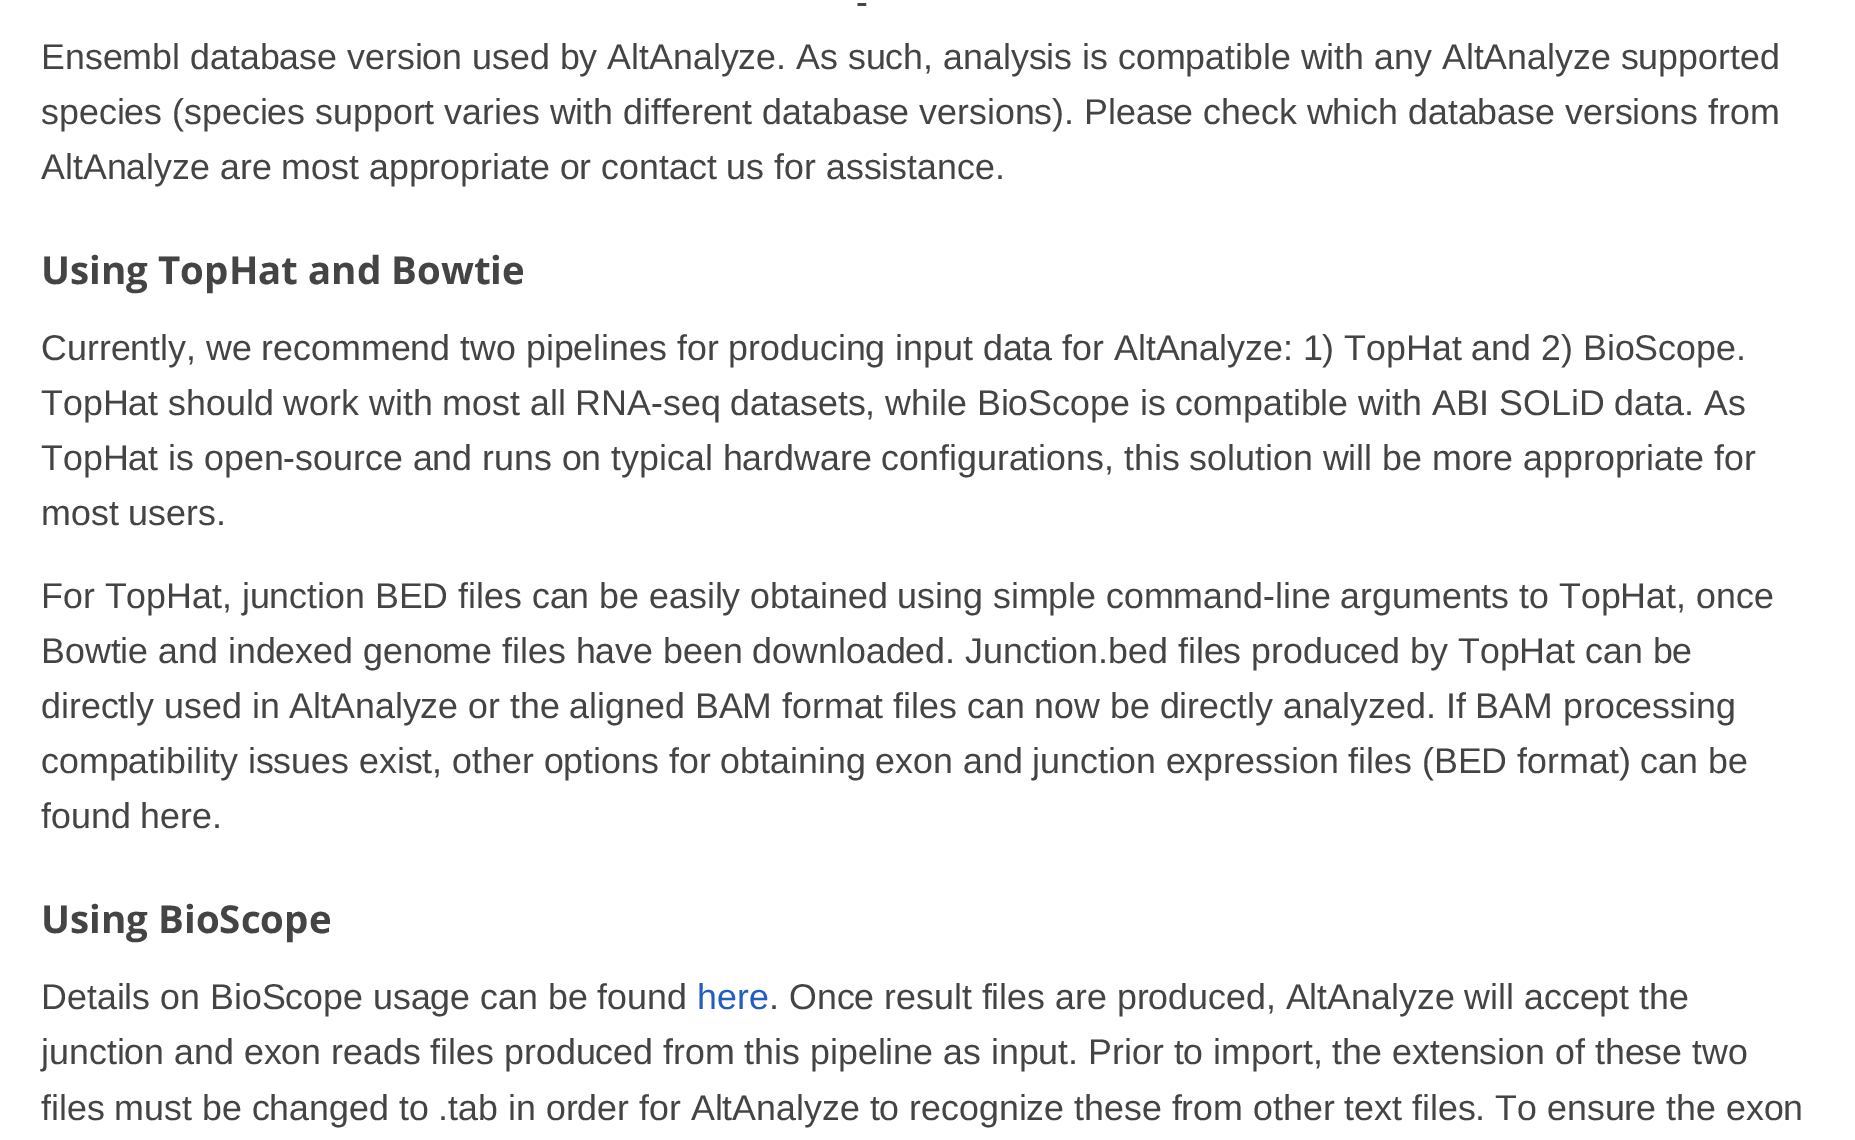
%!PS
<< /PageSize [1855 1140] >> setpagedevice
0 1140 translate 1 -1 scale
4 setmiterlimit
1 setgray
0 0 1855 1140 rectfill
/LiberationSans-Regular [35.75 0 0 -35.75 0 0] selectfont
0.267 setgray
856 14 moveto (-) show
41 69 moveto (Ensembl database version used by AltAnalyze. As such, analysis is compatible with any AltAnalyze supported) show
41 124 moveto (species \(species support varies with different database versions\). Please check which database versions from) show
41 179 moveto (AltAnalyze are most appropriate or contact us for assistance.) show
/OpenSans-Bold [38.5 0 0 -38.5 0 0] selectfont
41 284 moveto (Using TopHat and Bowtie) show
/LiberationSans-Regular [35.75 0 0 -35.75 0 0] selectfont
41 360 moveto (Currently, we recommend two pipelines for producing input data for AltAnalyze: 1\) TopHat and 2\) BioScope.) show
41 415 moveto (TopHat should work with most all RNA-seq datasets, while BioScope is compatible with ABI SOLiD data. As) show
41 470 moveto (TopHat is open-source and runs on typical hardware configurations, this solution will be more appropriate for) show
41 525 moveto (most users.) show
41 608 moveto (For TopHat, junction BED files can be easily obtained using simple command-line arguments to TopHat, once) show
41 663 moveto (Bowtie and indexed genome files have been downloaded. Junction.bed files produced by TopHat can be) show
41 718 moveto (directly used in AltAnalyze or the aligned BAM format files can now be directly analyzed. If BAM processing) show
41 773 moveto (compatibility issues exist, other options for obtaining exon and junction expression files \(BED format\) can be) show
41 828 moveto (found here.) show
/OpenSans-Bold [38.5 0 0 -38.5 0 0] selectfont
41 933 moveto (Using BioScope) show
/LiberationSans-Regular [35.75 0 0 -35.75 0 0] selectfont
41 1009 moveto (Details on BioScope usage can be found) show
0.141 0.365 0.757 setrgbcolor
697 1009 moveto (here) show
0.267 setgray
769 1009 moveto (. Once result files are produced, AltAnalyze will accept the) show
41 1064 moveto (junction and exon reads files produced from this pipeline as input. Prior to import, the extension of these two) show
41 1120 moveto (files must be changed to .tab in order for AltAnalyze to recognize these from other text files. To ensure the exon) show
showpage
